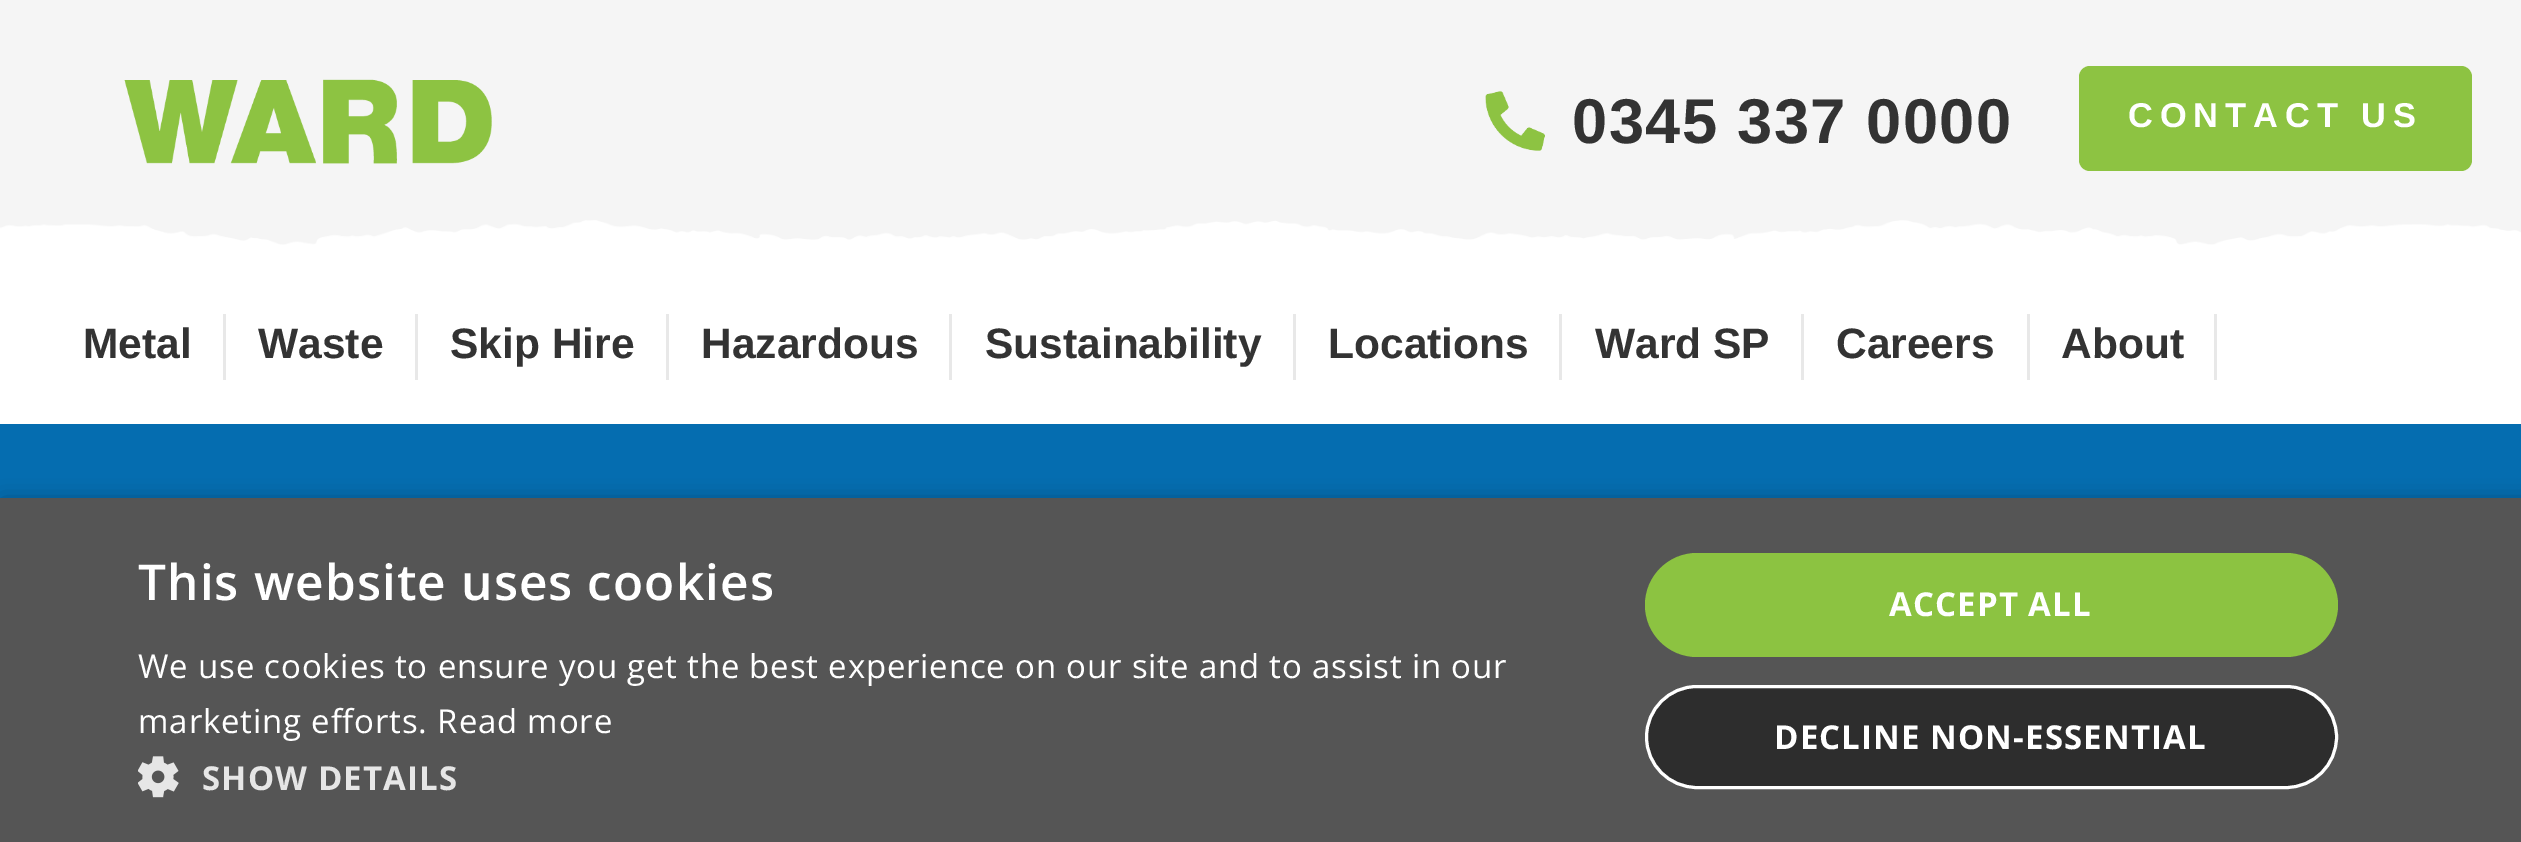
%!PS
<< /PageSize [2521 842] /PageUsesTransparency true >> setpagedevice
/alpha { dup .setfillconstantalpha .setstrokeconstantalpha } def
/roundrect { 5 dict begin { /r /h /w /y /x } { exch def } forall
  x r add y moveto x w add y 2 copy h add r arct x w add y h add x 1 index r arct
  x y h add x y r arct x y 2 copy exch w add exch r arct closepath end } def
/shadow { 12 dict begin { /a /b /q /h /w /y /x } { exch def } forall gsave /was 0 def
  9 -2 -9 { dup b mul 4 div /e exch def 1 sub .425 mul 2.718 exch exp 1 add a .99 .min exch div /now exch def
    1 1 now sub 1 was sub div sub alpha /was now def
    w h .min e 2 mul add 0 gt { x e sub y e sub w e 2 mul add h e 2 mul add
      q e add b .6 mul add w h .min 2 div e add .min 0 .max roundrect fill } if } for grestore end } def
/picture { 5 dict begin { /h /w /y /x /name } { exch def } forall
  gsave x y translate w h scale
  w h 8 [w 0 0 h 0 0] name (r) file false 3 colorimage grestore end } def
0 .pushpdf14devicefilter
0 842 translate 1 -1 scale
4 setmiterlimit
1 setgray
0 0 2521 842 rectfill
0.961 setgray
0 0 2521 220 rectfill
(img1.rgb) 124 79 368 85 picture
(img2.rgb) 1485 90 60 61 picture
/LiberationSans-Bold [63.25 0 0 -63.25 0 0] selectfont
0.2 setgray
1572 143 moveto 1.4 0 (0345 337 0000) ashow
0.553 0.765 0.259 setrgbcolor
2079 66 393 105 11 roundrect fill
/LiberationSans-Bold [34.4 0 0 -34.4 0 0] selectfont
1 setgray
2128 127 moveto 6.9 0 (CONTACT US) ashow
(img3.rgb) 0 220 2521 25 picture
/LiberationSans-Bold [42.5 0 0 -42.5 0 0] selectfont
0.2 setgray
83 358 moveto (Metal) show
0.91 setgray
223 314 3 66 rectfill
0.2 setgray
258 358 moveto (Waste) show
0.91 setgray
415 314 3 66 rectfill
0.2 setgray
450 358 moveto (Skip Hire) show
0.91 setgray
666 314 3 66 rectfill
0.2 setgray
701 358 moveto (Hazardous) show
0.91 setgray
949 314 3 66 rectfill
0.2 setgray
985 358 moveto (Sustainability) show
0.91 setgray
1293 314 3 66 rectfill
0.2 setgray
1328 358 moveto (Locations) show
0.91 setgray
1559 314 3 66 rectfill
0.2 setgray
1595 358 moveto (Ward SP) show
0.91 setgray
1801 314 3 66 rectfill
0.2 setgray
1836 358 moveto (Careers) show
0.91 setgray
2027 314 3 66 rectfill
0.2 setgray
2061 358 moveto (About) show
0.91 setgray
2214 314 3 66 rectfill
0.02 0.427 0.69 setrgbcolor
0 424 2521 74 rectfill
0 setgray
3 503 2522 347 0 11 0.35 shadow
0.333 setgray
0 498 2521 344 rectfill
/OpenSans-SemiBold [49.5 0 0 -49.5 0 0] selectfont
1 setgray
138 600 moveto 1.1 0 (This website uses cookies) ashow
/OpenSans-Regular [33 0 0 -33 0 0] selectfont
138 678 moveto 0.82 0 (We use cookies to ensure you get the best experience on our site and to assist in our) ashow
138 733 moveto 0.82 0 (marketing efforts. Read more) ashow
(img4.rgb) 138 756 41 42 picture
/OpenSans-Bold [33 0 0 -33 0 0] selectfont
0.902 setgray
202 790 moveto 1.1 0 (SHOW DETAILS) ashow
0.549 0.765 0.255 setrgbcolor
1645 553 693 104 52 roundrect fill
1 setgray
1889 616 moveto 1.1 0 (ACCEPT ALL) ashow
0.176 setgray
1646.5 686.5 690 101 50.5 roundrect gsave fill grestore
1 setgray
3 setlinewidth
stroke
1774 749 moveto 1.1 0 (DECLINE NON-ESSENTIAL) ashow
.poppdf14devicefilter showpage
